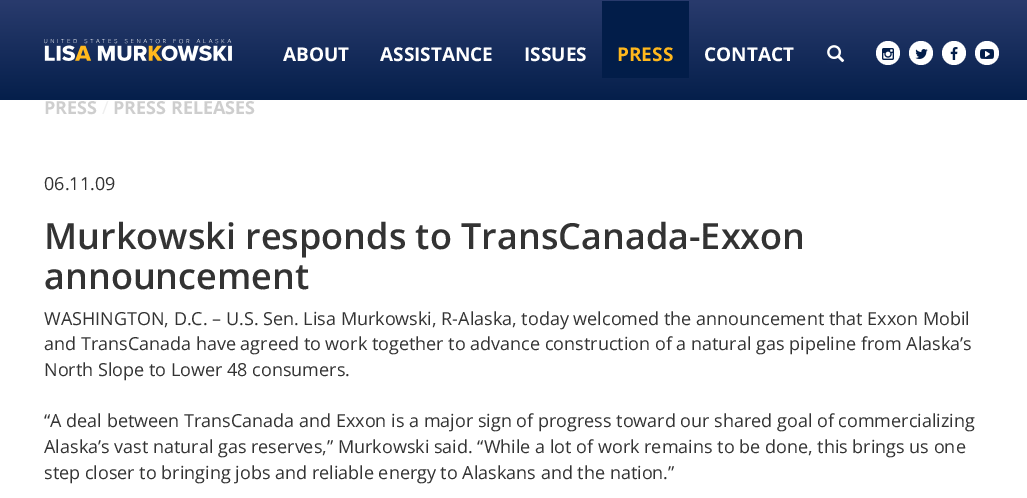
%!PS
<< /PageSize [1027 498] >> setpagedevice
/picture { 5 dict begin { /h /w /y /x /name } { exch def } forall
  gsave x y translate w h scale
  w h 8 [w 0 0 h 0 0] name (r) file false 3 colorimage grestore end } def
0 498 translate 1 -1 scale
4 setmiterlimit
1 setgray
0 0 1027 498 rectfill
gsave newpath 0 0 moveto 1027 0 lineto 1027 100 lineto 0 100 lineto closepath clip newpath
<< /ShadingType 2 /ColorSpace /DeviceRGB /Coords [514 0 514 100] /Extend [true true] /Function << /FunctionType 2 /Domain [0 1] /C0 [0.161 0.231 0.427] /C1 [0.02 0.122 0.294] /N 1 >> >> shfill grestore
(img1.rgb) 44 39 188 22 picture
/OpenSans-Bold [19 0 0 -19 0 0] selectfont
283 61 moveto (ABOUT) show
380 61 moveto (ASSISTANCE) show
524 61 moveto (ISSUES) show
0.008 0.114 0.286 setrgbcolor
602 1 87 77 rectfill
1 0.722 0.114 setrgbcolor
617 61 moveto (PRESS) show
1 setgray
704 61 moveto (CONTACT) show
(img2.rgb) 827 45 18 18 picture
newpath 888 53 12 0 360 arc closepath fill
(img3.rgb) 882 48 12 12 picture
newpath 921 53 12 0 360 arc closepath fill
(img4.rgb) 915 49 13 10 picture
newpath 954 53 12 0 360 arc closepath fill
(img5.rgb) 950 47 8 13 picture
newpath 987 53 12 0 360 arc closepath fill
(img6.rgb) 980 49 14 10 picture
/OpenSans-Bold [18 0 0 -18 0 0] selectfont
0.808 setgray
44 114 moveto (PRESS) show
/OpenSans-Regular [18 0 0 -18 0 0] selectfont
0.933 setgray
102 114 moveto (/) show
/OpenSans-Bold [18 0 0 -18 0 0] selectfont
0.808 setgray
113 114 moveto (PRESS RELEASES) show
/OpenSans-Regular [18 0 0 -18 0 0] selectfont
0.2 setgray
44 190 moveto (06.11.09) show
/OpenSans-SemiBold [36 0 0 -36 0 0] selectfont
44 249 moveto (Murkowski responds to TransCanada-Exxon) show
44 289 moveto (announcement) show
/OpenSans-Regular [18 0 0 -18 0 0] selectfont
44 325 moveto (WASHINGTON, D.C. – U.S. Sen. Lisa Murkowski, R-Alaska, today welcomed the announcement that Exxon Mobil) show
44 350 moveto (and TransCanada have agreed to work together to advance construction of a natural gas pipeline from Alaska’s) show
44 376 moveto (North Slope to Lower 48 consumers.) show
44 427 moveto (“A deal between TransCanada and Exxon is a major sign of progress toward our shared goal of commercializing) show
44 453 moveto (Alaska’s vast natural gas reserves,” Murkowski said. “While a lot of work remains to be done, this brings us one) show
44 479 moveto (step closer to bringing jobs and reliable energy to Alaskans and the nation.”) show
showpage
